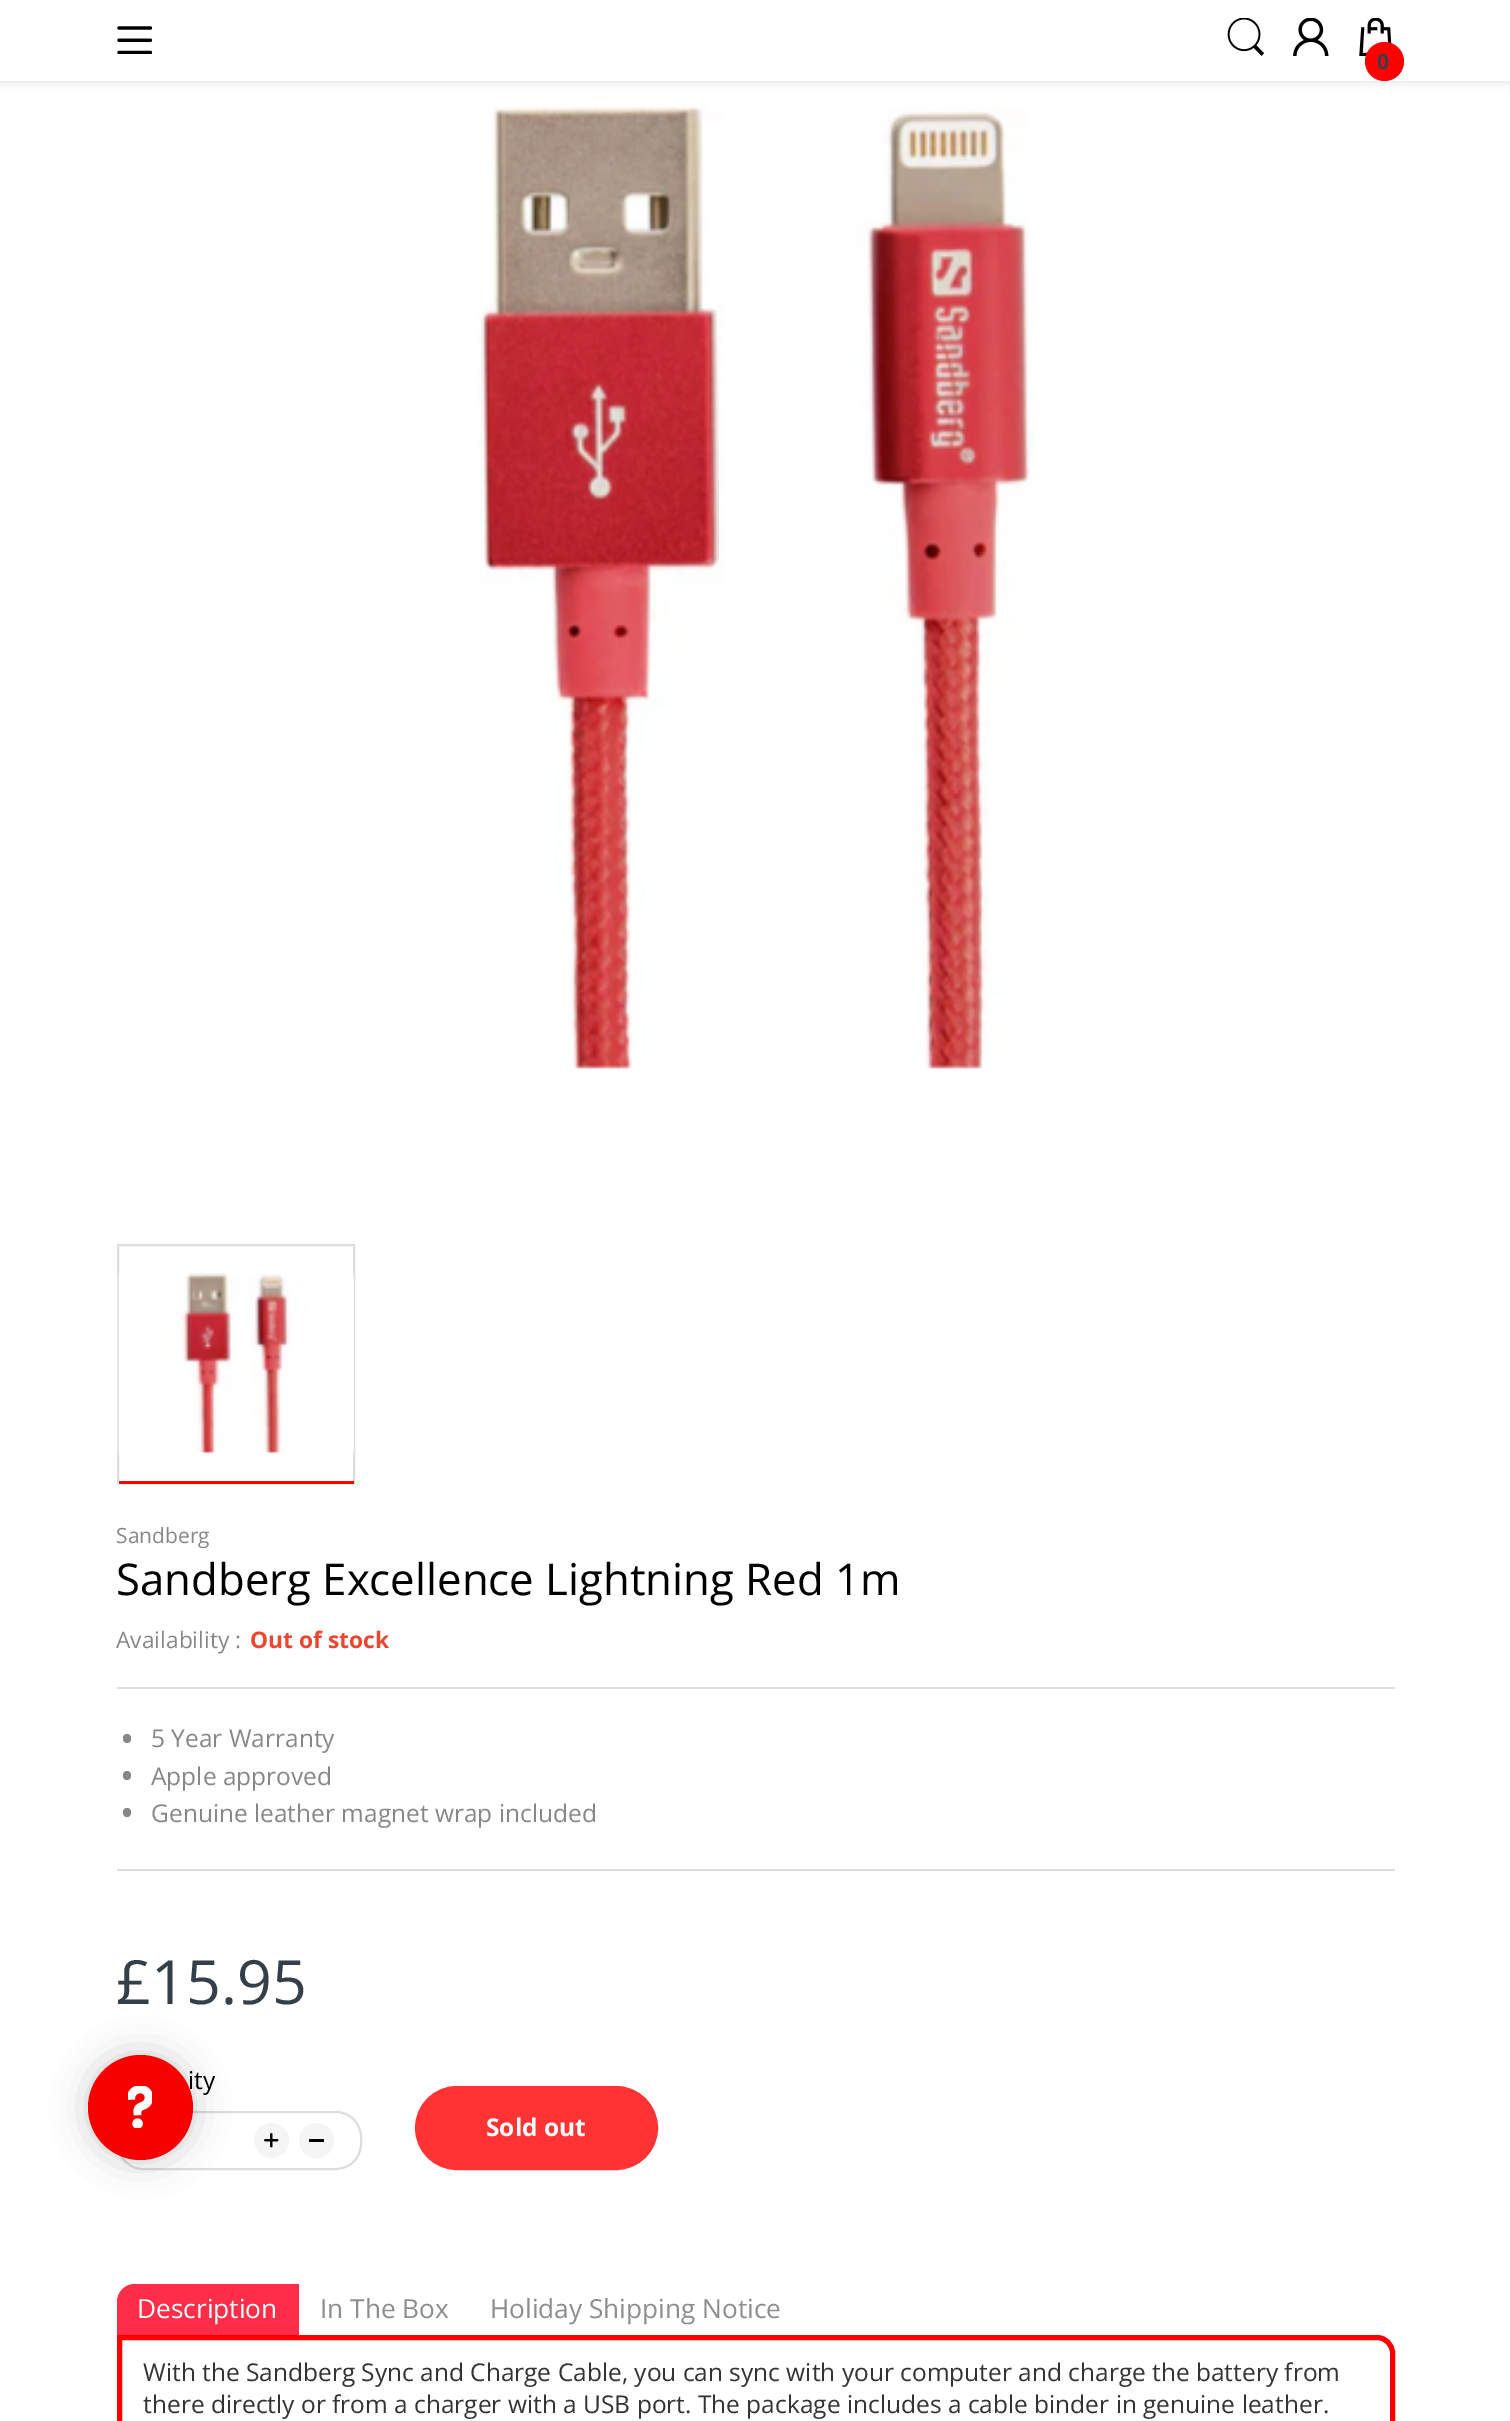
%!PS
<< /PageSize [1510 2421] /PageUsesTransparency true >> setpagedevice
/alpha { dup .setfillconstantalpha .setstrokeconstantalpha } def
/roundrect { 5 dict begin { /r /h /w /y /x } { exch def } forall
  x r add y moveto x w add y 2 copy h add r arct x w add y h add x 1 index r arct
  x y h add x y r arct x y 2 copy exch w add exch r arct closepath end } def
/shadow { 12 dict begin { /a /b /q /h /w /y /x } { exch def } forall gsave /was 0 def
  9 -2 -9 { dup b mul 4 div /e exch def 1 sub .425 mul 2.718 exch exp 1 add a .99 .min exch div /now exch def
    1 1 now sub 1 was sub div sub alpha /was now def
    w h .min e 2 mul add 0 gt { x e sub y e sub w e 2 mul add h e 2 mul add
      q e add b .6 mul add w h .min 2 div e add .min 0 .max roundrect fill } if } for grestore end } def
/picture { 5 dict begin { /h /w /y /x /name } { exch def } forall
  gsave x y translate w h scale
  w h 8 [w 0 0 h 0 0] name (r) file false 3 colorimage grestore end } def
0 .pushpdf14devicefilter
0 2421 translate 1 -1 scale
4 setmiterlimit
1 setgray
0 0 1510 2421 rectfill
0.125 0.129 0.141 setrgbcolor
0 0 1510 81 0 5 0.15 shadow
1 setgray
0 0 1510 81 rectfill
(img1.rgb) 117 26 35 28 picture
(img2.rgb) 1227 18 38 38 picture
(img3.rgb) 1293 18 36 38 picture
(img4.rgb) 1359 18 33 38 picture
0.996 0 0 setrgbcolor
newpath 1384.5 61.5 19.5 0 360 arc closepath fill
/OpenSans-Bold [21 0 0 -21 0 0] selectfont
0.204 0.247 0.286 setrgbcolor
1377 69 moveto (0) show
(img5.rgb) 479 107 556 962 picture
0.867 setgray
2 setlinewidth
118 1245 236 238 rectstroke
(img6.rgb) 117 1273 237 182 picture
1 0 0 setrgbcolor
119 1481 235 3 rectfill
0.867 setgray
117 1687 1278 2 rectfill
/OpenSans-Regular [21 0 0 -21 0 0] selectfont
0.529 setgray
116 1543 moveto (Sandberg) show
/OpenSans-Regular [43.75 0 0 -43.75 0 0] selectfont
0 setgray
116 1595 moveto (Sandberg Excellence Lightning Red 1m) show
/OpenSans-Regular [22.75 0 0 -22.75 0 0] selectfont
0.529 setgray
116 1648 moveto (Availability :) show
/OpenSans-Bold [22.75 0 0 -22.75 0 0] selectfont
0.929 0.275 0.184 setrgbcolor
250 1648 moveto (Out of stock) show
0.867 setgray
117 1869 1278 2 rectfill
0.529 setgray
123 1734 8 9 4 roundrect fill
/OpenSans-Regular [24.5 0 0 -24.5 0 0] selectfont
151 1747 moveto (5 Year Warranty) show
123 1771 8 9 4 roundrect fill
151 1785 moveto (Apple approved) show
123 1808 8 9 4 roundrect fill
151 1822 moveto (Genuine leather magnet wrap included) show
/OpenSans-Regular [61 0 0 -61 0 0] selectfont
0.204 0.247 0.286 setrgbcolor
116 2004 moveto (£15.95) show
/OpenSans-Regular [24.5 0 0 -24.5 0 0] selectfont
0 setgray
188 2089 moveto (ity) show
0.867 setgray
118 2112 243 57 25 roundrect stroke
0.961 setgray
newpath 271.5 2140.5 17.5 0 360 arc closepath fill
(img7.rgb) 264 2133 15 15 picture
newpath 316.5 2140.5 17.5 0 360 arc closepath fill
0 setgray
309 2139 15 3 rectfill
1 0.2 0.2 setrgbcolor
416 2087 241 82 41 roundrect gsave fill grestore
stroke
/OpenSans-Bold [24.5 0 0 -24.5 0 0] selectfont
1 setgray
486 2136 moveto (Sold out) show
1 0.176 0.278 setrgbcolor
newpath 135 2284 moveto 299 2284 lineto 299 2335 lineto 117 2335 lineto 117 2302 lineto 117 2292 125 2284 135 2284 curveto closepath fill
/OpenSans-Regular [26.25 0 0 -26.25 0 0] selectfont
1 setgray
137 2318 moveto (Description) show
0.553 setgray
320 2318 moveto (In The Box) show
490 2318 moveto (Holiday Shipping Notice) show
1 0 0 setrgbcolor
5 setlinewidth
newpath 119.5 2337.5 moveto 1377 2337.5 lineto 1385.5 2337.5 1392.5 2344.5 1392.5 2353 curveto 1392.5 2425 lineto 1392.5 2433.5 1385.5 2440.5 1377 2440.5 curveto 135 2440.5 lineto 126.5 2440.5 119.5 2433.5 119.5 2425 curveto closepath stroke
/OpenSans-Regular [24.5 0 0 -24.5 0 0] selectfont
0.2 setgray
143 2381 moveto (With the Sandberg Sync and Charge Cable, you can sync with your computer and charge the battery from) show
143 2413 moveto (there directly or from a charger with a USB port. The package includes a cable binder in genuine leather.) show
0 setgray
88 2055 105 105 52.5 17.5 0.2 shadow
0.969 0 0 setrgbcolor
newpath 140.5 2107.5 52.5 0 360 arc closepath fill
(img8.rgb) 128 2086 24 42 picture
.poppdf14devicefilter showpage
